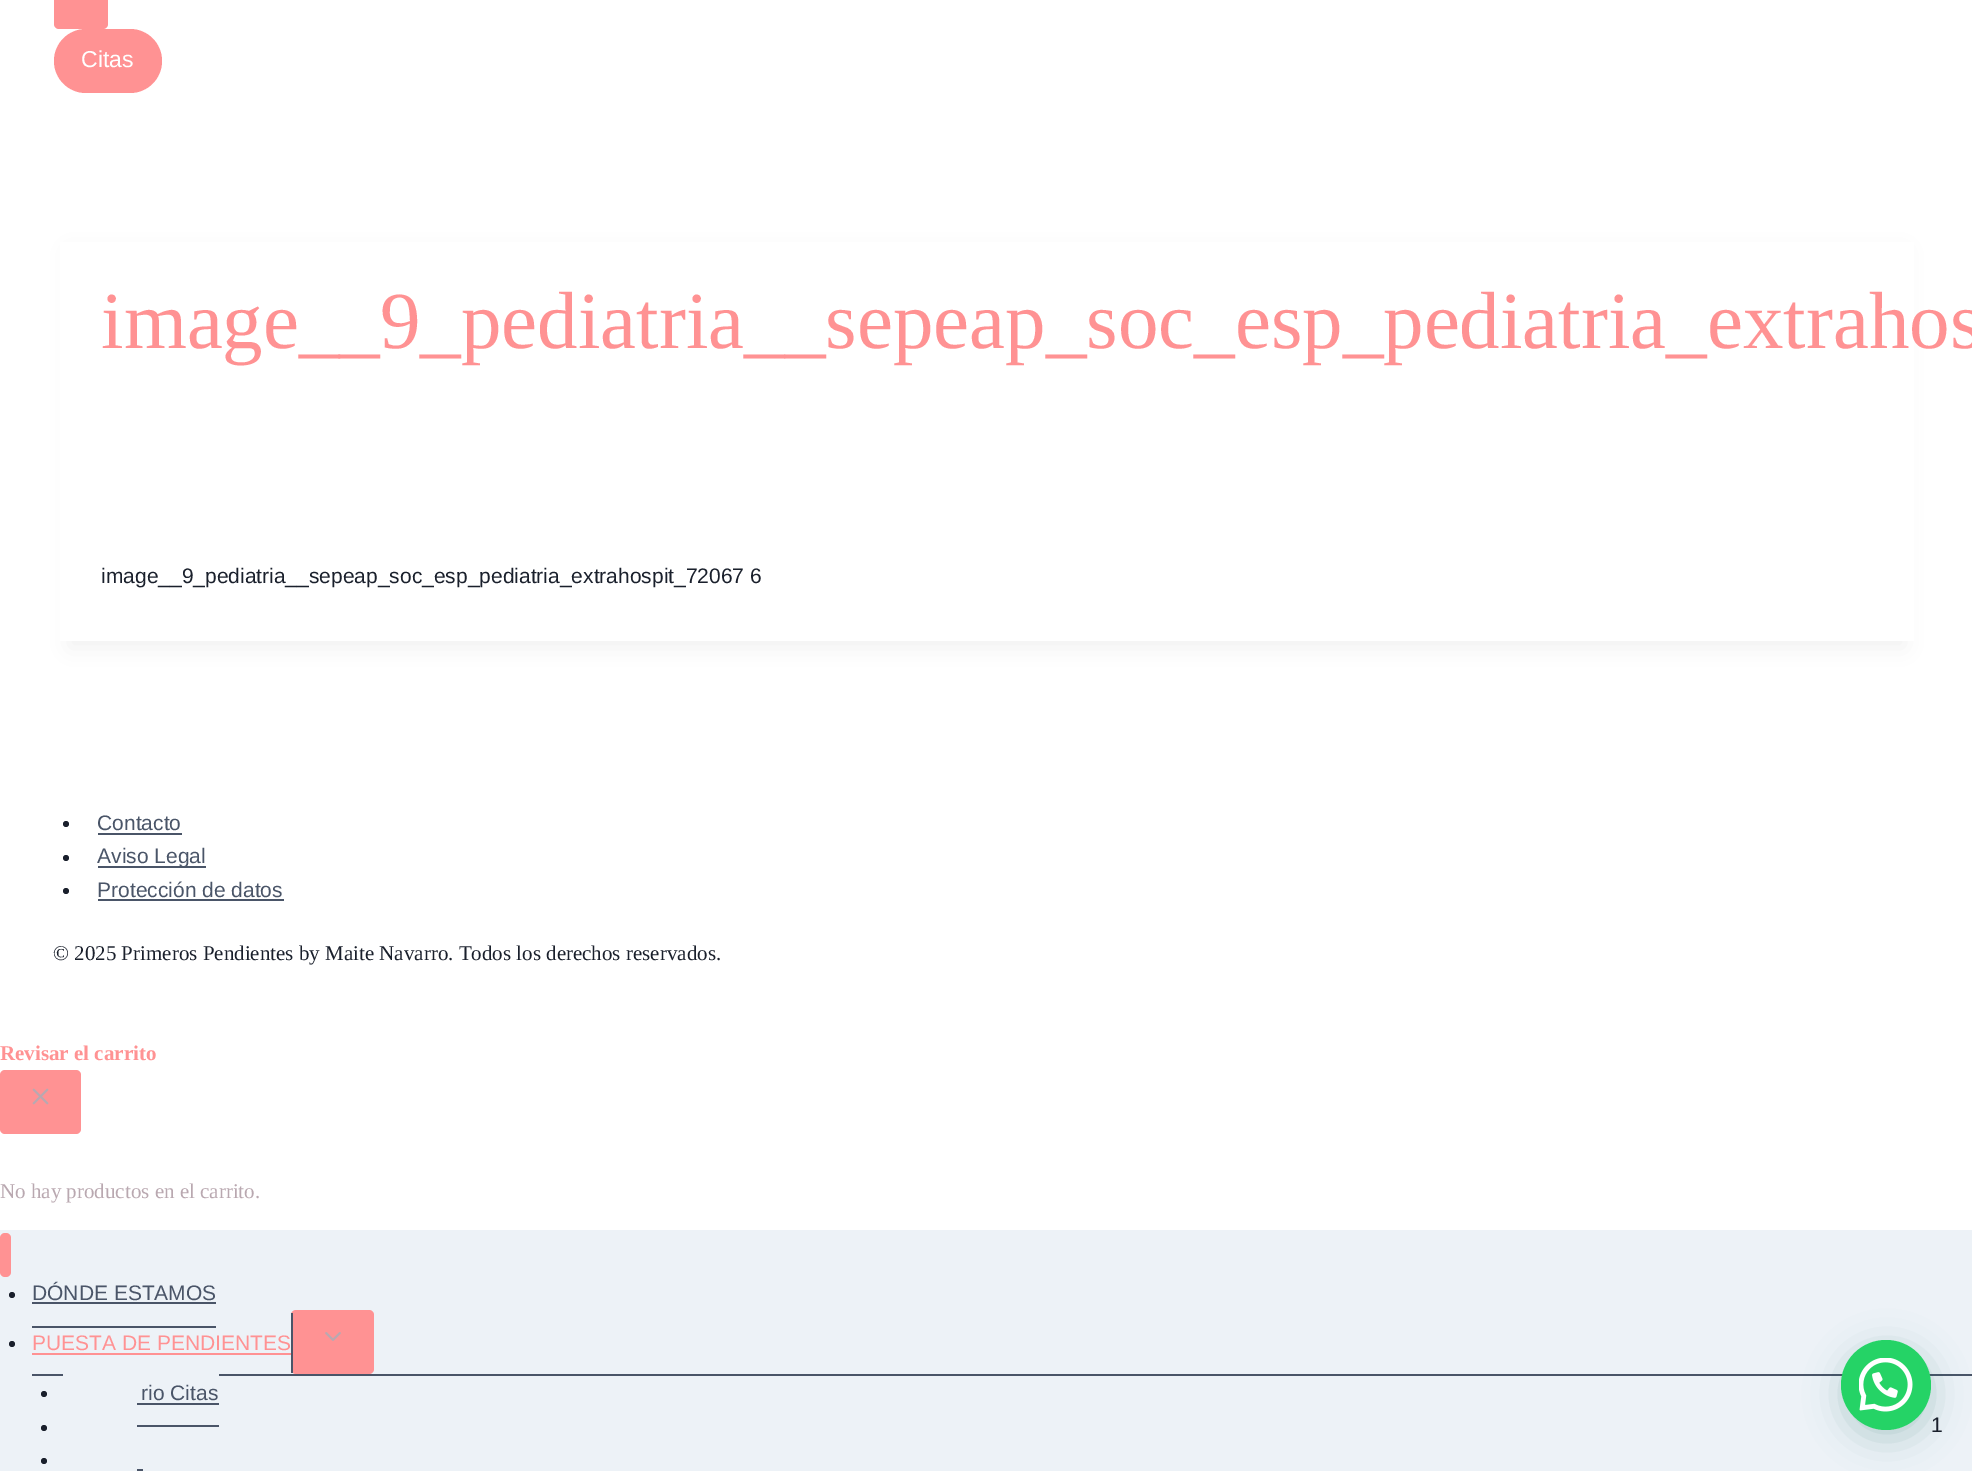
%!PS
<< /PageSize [1972 1471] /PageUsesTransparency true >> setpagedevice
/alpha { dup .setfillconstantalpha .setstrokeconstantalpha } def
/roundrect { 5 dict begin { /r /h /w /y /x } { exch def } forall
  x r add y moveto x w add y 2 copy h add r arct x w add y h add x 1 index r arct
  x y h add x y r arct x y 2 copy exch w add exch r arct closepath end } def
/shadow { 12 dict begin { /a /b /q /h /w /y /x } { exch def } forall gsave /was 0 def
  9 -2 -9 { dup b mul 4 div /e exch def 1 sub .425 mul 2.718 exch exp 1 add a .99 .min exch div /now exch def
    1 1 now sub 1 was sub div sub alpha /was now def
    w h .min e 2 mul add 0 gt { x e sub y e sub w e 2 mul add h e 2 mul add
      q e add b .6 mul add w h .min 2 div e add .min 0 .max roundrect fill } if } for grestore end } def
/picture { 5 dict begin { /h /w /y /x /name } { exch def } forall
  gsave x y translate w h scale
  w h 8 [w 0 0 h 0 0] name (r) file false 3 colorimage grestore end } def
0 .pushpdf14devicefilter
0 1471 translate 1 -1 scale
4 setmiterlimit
1 setgray
0 0 1972 1471 rectfill
1 0.573 0.576 setrgbcolor
54 -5 54 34 5 roundrect fill
54 29 108 64 32 roundrect fill
/LiberationSans-Regular [23 0 0 -23 0 0] selectfont
1 setgray
81 67 moveto (Citas) show
0 setgray
69 251 1836 397 0 11 0.05 shadow
1 setgray
60 242 1854 399 rectfill
/LiberationSerif-Regular [81 0 0 -81 0 0] selectfont
1 0.573 0.576 setrgbcolor
101 348 moveto (image__9_pediatria__sepeap_soc_esp_pediatria_extrahos) show
/LiberationSans-Regular [21 0 0 -21 0 0] selectfont
0.102 0.125 0.173 setrgbcolor
101 583 moveto (image__9_pediatria__sepeap_soc_esp_pediatria_extrahospit_72067 6) show
newpath 66 824 3 0 360 arc closepath fill
0.29 0.333 0.408 setrgbcolor
97 830 moveto (Contacto) show
98 833 84 2 rectfill
0.102 0.125 0.173 setrgbcolor
newpath 66 858 3 0 360 arc closepath fill
0.29 0.333 0.408 setrgbcolor
98 866 108 2 rectfill
97 863 moveto (Aviso Legal) show
0.102 0.125 0.173 setrgbcolor
newpath 66 891 3 0 360 arc closepath fill
0.29 0.333 0.408 setrgbcolor
97 897 moveto (Protección de datos) show
98 899 186 2 rectfill
/LiberationSerif-Regular [21 0 0 -21 0 0] selectfont
0.102 0.125 0.173 setrgbcolor
53 960 moveto (© 2025 Primeros Pendientes by Maite Navarro. Todos los derechos reservados.) show
/LiberationSerif-Bold [21 0 0 -21 0 0] selectfont
1 0.573 0.576 setrgbcolor
0 1060 moveto (Revisar el carrito) show
0 1070 81 64 5 roundrect fill
(img1.rgb) 32 1088 17 17 picture
/LiberationSerif-Regular [21 0 0 -21 0 0] selectfont
0.725 0.659 0.69 setrgbcolor
0 1198 moveto (No hay productos en el carrito.) show
0.929 0.949 0.969 setrgbcolor
0 1230 1972 241 rectfill
1 0.573 0.576 setrgbcolor
0 1233 11 44 5 roundrect fill
0.102 0.125 0.173 setrgbcolor
newpath 12 1295 3 0 360 arc closepath fill
/LiberationSans-Regular [21 0 0 -21 0 0] selectfont
0.29 0.333 0.408 setrgbcolor
32 1300 moveto (DÓNDE ESTAMOS) show
32 1326 184 2 rectfill
32 1302 184 2 rectfill
0.102 0.125 0.173 setrgbcolor
newpath 12 1344 3 0 360 arc closepath fill
0.29 0.333 0.408 setrgbcolor
32 1374 1940 2 rectfill
1 0.573 0.576 setrgbcolor
32 1350 moveto (PUESTA DE PENDIENTES) show
32 1353 259 2 rectfill
291 1310 83 64 5 roundrect fill
0.29 0.333 0.408 setrgbcolor
291 1313 2 60 rectfill
(img2.rgb) 325 1332 16 9 picture
0.102 0.125 0.173 setrgbcolor
newpath 44 1394 3 0 360 arc closepath fill
0.29 0.333 0.408 setrgbcolor
141 1400 moveto (rio Citas) show
0.929 0.949 0.969 setrgbcolor
63 1374 156 2 rectfill
0.29 0.333 0.408 setrgbcolor
137 1425 82 2 rectfill
137 1403 82 2 rectfill
0.102 0.125 0.173 setrgbcolor
newpath 44 1428 3 0 360 arc closepath fill
newpath 44 1461 3 0 360 arc closepath fill
0.29 0.333 0.408 setrgbcolor
137 1469 6 2 rectfill
0.027 0.369 0.329 setrgbcolor
1842 1349 90 90 45 18 0.24 shadow
0.145 0.827 0.4 setrgbcolor
newpath 1886 1385 45 0 360 arc closepath fill
(img3.rgb) 1859 1358 54 54 picture
0.102 0.125 0.173 setrgbcolor
1931 1432 moveto (1) show
.poppdf14devicefilter showpage
